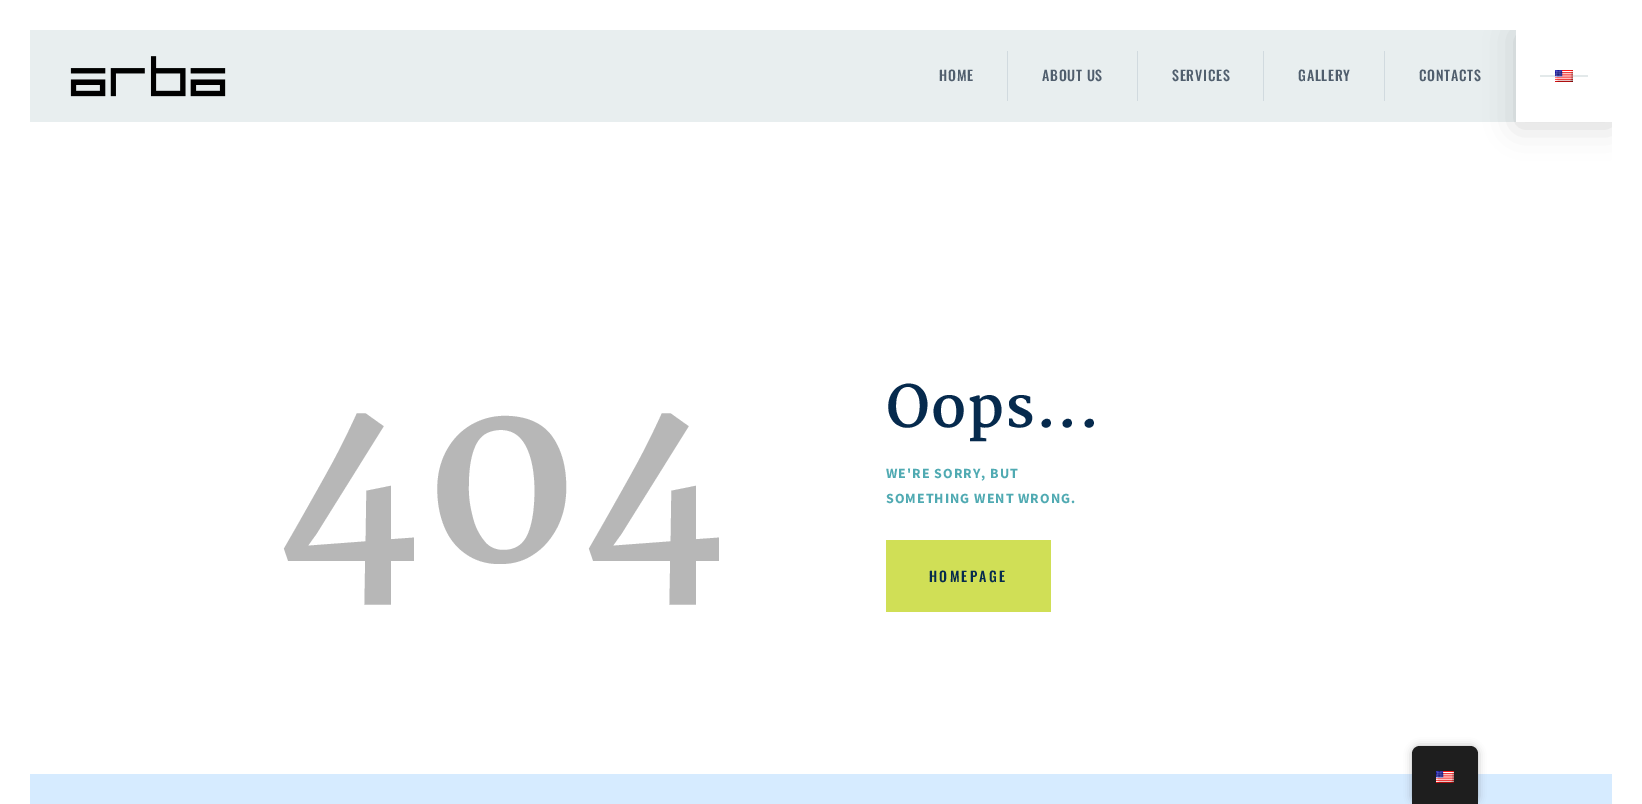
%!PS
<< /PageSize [1642 804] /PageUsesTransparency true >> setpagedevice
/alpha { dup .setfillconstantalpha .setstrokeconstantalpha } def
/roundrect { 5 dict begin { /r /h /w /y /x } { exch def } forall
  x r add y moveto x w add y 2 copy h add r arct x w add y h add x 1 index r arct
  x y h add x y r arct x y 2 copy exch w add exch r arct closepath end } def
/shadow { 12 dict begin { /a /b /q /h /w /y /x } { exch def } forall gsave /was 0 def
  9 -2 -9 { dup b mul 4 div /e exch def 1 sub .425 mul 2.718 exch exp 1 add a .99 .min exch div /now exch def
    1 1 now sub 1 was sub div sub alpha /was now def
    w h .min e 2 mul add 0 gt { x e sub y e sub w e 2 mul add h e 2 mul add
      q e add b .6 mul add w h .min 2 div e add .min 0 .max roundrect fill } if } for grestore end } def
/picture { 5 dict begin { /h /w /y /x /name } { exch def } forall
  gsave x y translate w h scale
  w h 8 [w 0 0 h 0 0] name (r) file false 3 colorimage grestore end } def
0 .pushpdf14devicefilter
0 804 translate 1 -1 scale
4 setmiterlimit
1 setgray
0 0 1642 804 rectfill
0.91 0.933 0.937 setrgbcolor
30 30 1486 92 rectfill
(img1.rgb) 70 56 156 41 picture
/Oswald-Medium [14 0 0 -14 0 0] selectfont
0.314 0.369 0.427 setrgbcolor
939 81 moveto 0.75 0 (HOME) ashow
0.82 0.855 0.875 setrgbcolor
1007 51 1 50 rectfill
0.314 0.369 0.427 setrgbcolor
1042 81 moveto 0.75 0 (ABOUT US) ashow
0.82 0.855 0.875 setrgbcolor
1137 51 1 50 rectfill
0.314 0.369 0.427 setrgbcolor
1172 81 moveto 0.75 0 (SERVICES) ashow
0.82 0.855 0.875 setrgbcolor
1263 51 1 50 rectfill
0.314 0.369 0.427 setrgbcolor
1298 81 moveto 0.75 0 (GALLERY) ashow
0.82 0.855 0.875 setrgbcolor
1384 51 1 50 rectfill
gsave
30 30 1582 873 rectclip
0 setgray
1517 34 96 92 0 15.5 0.16 shadow
grestore
0.314 0.369 0.427 setrgbcolor
1419 81 moveto 0.75 0 (CONTACTS) ashow
1 setgray
1516 30 96 92 rectfill
0.89 0.914 0.918 setrgbcolor
1540 75 48 2 rectfill
(img2.rgb) 1555 70 18 12 picture
/Martel-Bold [238 0 0 -238 0 0] selectfont
0.718 setgray
275 561 moveto (404) show
/Martel-Bold [57 0 0 -57 0 0] selectfont
0.024 0.165 0.302 setrgbcolor
886 427 moveto 1 0 (Oops...) ashow
/SourceSansPro-Bold [14 0 0 -14 0 0] selectfont
0.314 0.667 0.698 setrgbcolor
886 478 moveto 1 0 (WE'RE SORRY, BUT) ashow
886 503 moveto 1 0 (SOMETHING WENT WRONG.) ashow
0.816 0.875 0.337 setrgbcolor
886 540 165 72 rectfill
/Oswald-Medium [14 0 0 -14 0 0] selectfont
0.024 0.165 0.302 setrgbcolor
929 582 moveto 2.25 0 (HOMEPAGE) ashow
0.839 0.922 1 setrgbcolor
30 774 1582 30 rectfill
0 setgray
1412 746 66 58 8 4 0.25 shadow
0.118 setgray
newpath 1420 746 moveto 1470 746 lineto 1474.5 746 1478 749.5 1478 754 curveto 1478 804 lineto 1412 804 lineto 1412 754 lineto 1412 749.5 1415.5 746 1420 746 curveto closepath fill
(img2.rgb) 1436 771 18 12 picture
.poppdf14devicefilter showpage
